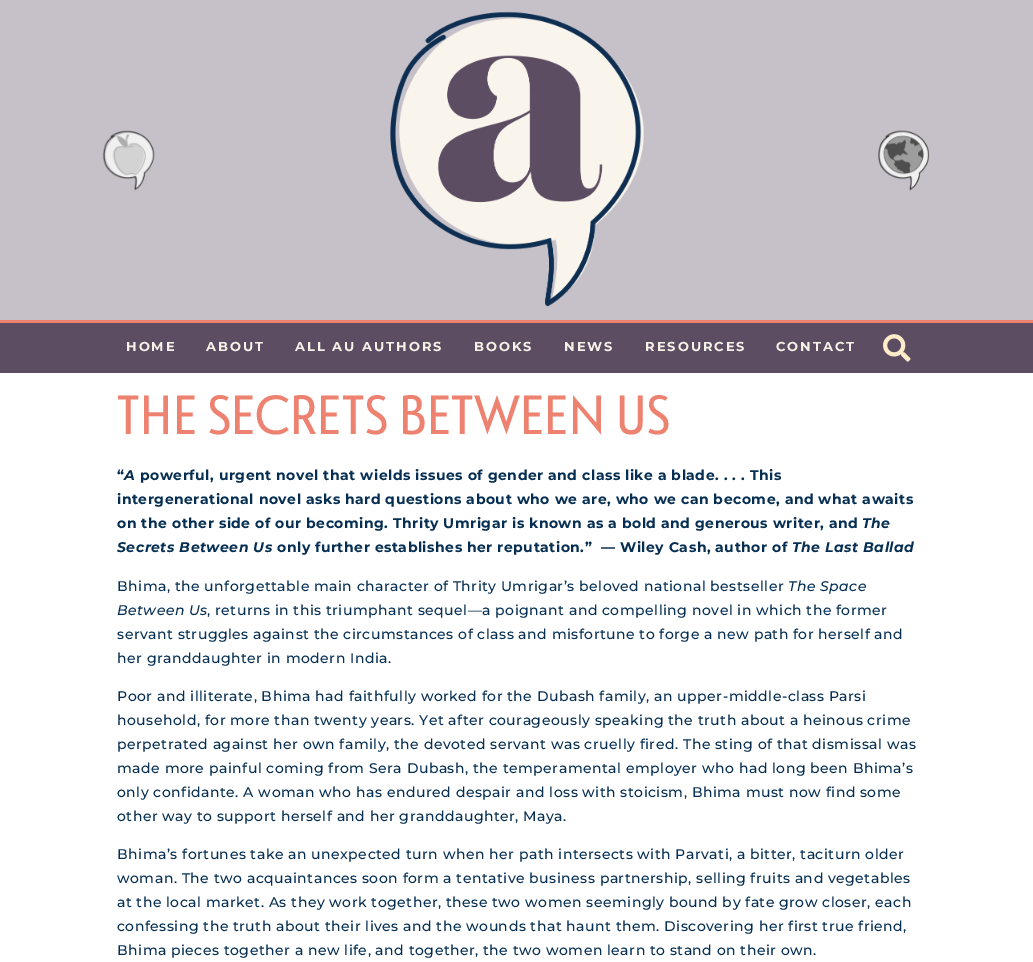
%!PS
<< /PageSize [1033 962] >> setpagedevice
/picture { 5 dict begin { /h /w /y /x /name } { exch def } forall
  gsave x y translate w h scale
  w h 8 [w 0 0 h 0 0] name (r) file false 3 colorimage grestore end } def
0 962 translate 1 -1 scale
4 setmiterlimit
1 setgray
0 0 1033 962 rectfill
0.776 0.757 0.788 setrgbcolor
0 0 1033 320 rectfill
(img1.rgb) 102 130 53 61 picture
(img2.rgb) 390 11 254 296 picture
(img3.rgb) 878 130 52 61 picture
0.365 0.302 0.388 setrgbcolor
0 323 1033 50 rectfill
0.929 0.51 0.439 setrgbcolor
0 320 1033 3 rectfill
/Montserrat-Bold [13 0 0 -13 0 0] selectfont
0.969 0.949 0.91 setrgbcolor
126 351 moveto 2 0 (HOME) ashow
206 351 moveto 2 0 (ABOUT) ashow
295 351 moveto 2 0 (ALL AU AUTHORS) ashow
474 351 moveto 2 0 (BOOKS) ashow
564 351 moveto 2 0 (NEWS) ashow
645 351 moveto 2 0 (RESOURCES) ashow
776 351 moveto 2 0 (CONTACT) ashow
(img4.rgb) 883 334 28 28 picture
/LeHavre-Regular [55 0 0 -55 0 0] selectfont
0.929 0.51 0.439 setrgbcolor
117 434 moveto 0.5 0 (THE SECRETS BETWEEN US) ashow
/Montserrat-Bold [14 0 0 -14 0 0] selectfont
0.02 0.18 0.322 setrgbcolor
117 480 moveto 0.5 0 (“) ashow
/Montserrat-BoldItalic [14 0 0 -14 0 0] selectfont
124 480 moveto 0.5 0 (A) ashow
/Montserrat-Bold [14 0 0 -14 0 0] selectfont
140 480 moveto 0.5 0 (powerful, urgent novel that wields issues of gender and class like a blade. . . . This) ashow
117 504 moveto 0.5 0 (intergenerational novel asks hard questions about who we are, who we can become, and what awaits) ashow
117 528 moveto 0.5 0 (on the other side of our becoming. Thrity Umrigar is known as a bold and generous writer, and) ashow
/Montserrat-BoldItalic [14 0 0 -14 0 0] selectfont
862 528 moveto 0.5 0 (The) ashow
117 552 moveto 0.5 0 (Secrets Between Us) ashow
/Montserrat-Bold [14 0 0 -14 0 0] selectfont
277 552 moveto 0.5 0 (only further establishes her reputation.”  — Wiley Cash, author of) ashow
/Montserrat-BoldItalic [14 0 0 -14 0 0] selectfont
792 552 moveto 0.5 0 (The Last Ballad) ashow
/Montserrat-Medium [14 0 0 -14 0 0] selectfont
117 591 moveto 0.5 0 (Bhima, the unforgettable main character of Thrity Umrigar’s beloved national bestseller) ashow
/Montserrat-MediumItalic [14 0 0 -14 0 0] selectfont
788 591 moveto 0.5 0 (The Space) ashow
117 615 moveto 0.5 0 (Between Us) ashow
/Montserrat-Medium [14 0 0 -14 0 0] selectfont
207 615 moveto 0.5 0 (, returns in this triumphant sequel—a poignant and compelling novel in which the former) ashow
117 639 moveto 0.5 0 (servant struggles against the circumstances of class and misfortune to forge a new path for herself and) ashow
117 663 moveto 0.5 0 (her granddaughter in modern India.) ashow
117 701 moveto 0.5 0 (Poor and illiterate, Bhima had faithfully worked for the Dubash family, an upper-middle-class Parsi) ashow
117 725 moveto 0.5 0 (household, for more than twenty years. Yet after courageously speaking the truth about a heinous crime) ashow
117 749 moveto 0.5 0 (perpetrated against her own family, the devoted servant was cruelly fired. The sting of that dismissal was) ashow
117 773 moveto 0.5 0 (made more painful coming from Sera Dubash, the temperamental employer who had long been Bhima’s) ashow
117 797 moveto 0.5 0 (only confidante. A woman who has endured despair and loss with stoicism, Bhima must now find some) ashow
117 821 moveto 0.5 0 (other way to support herself and her granddaughter, Maya.) ashow
117 859 moveto 0.5 0 (Bhima’s fortunes take an unexpected turn when her path intersects with Parvati, a bitter, taciturn older) ashow
117 883 moveto 0.5 0 (woman. The two acquaintances soon form a tentative business partnership, selling fruits and vegetables) ashow
117 907 moveto 0.5 0 (at the local market. As they work together, these two women seemingly bound by fate grow closer, each) ashow
117 931 moveto 0.5 0 (confessing the truth about their lives and the wounds that haunt them. Discovering her first true friend,) ashow
117 955 moveto 0.5 0 (Bhima pieces together a new life, and together, the two women learn to stand on their own.) ashow
showpage
